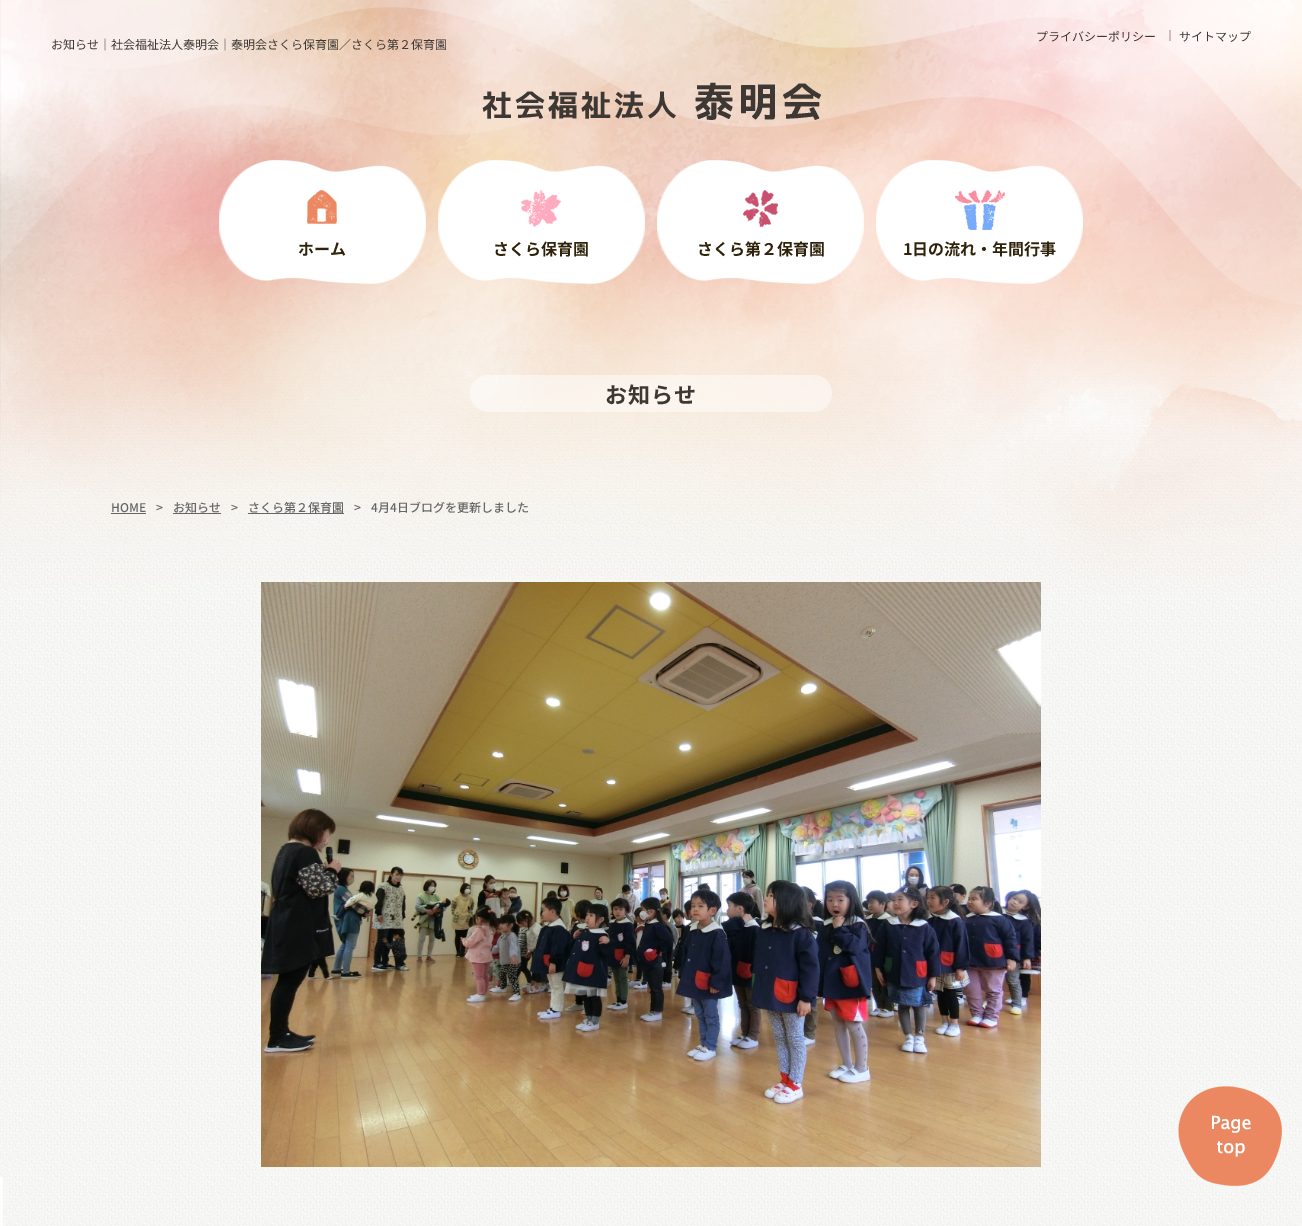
%!PS
<< /PageSize [1302 1226] /PageUsesTransparency true >> setpagedevice
/alpha { dup .setfillconstantalpha .setstrokeconstantalpha } def
/roundrect { 5 dict begin { /r /h /w /y /x } { exch def } forall
  x r add y moveto x w add y 2 copy h add r arct x w add y h add x 1 index r arct
  x y h add x y r arct x y 2 copy exch w add exch r arct closepath end } def
/picture { 5 dict begin { /h /w /y /x /name } { exch def } forall
  gsave x y translate w h scale
  w h 8 [w 0 0 h 0 0] name (r) file false 3 colorimage grestore end } def
0 .pushpdf14devicefilter
0 1226 translate 1 -1 scale
4 setmiterlimit
1 setgray
0 0 1302 1226 rectfill
(img1.rgb) 0 0 1302 1226 picture
/NotoSansJP-Regular [12 0 0 -12 0 0] selectfont
0.239 0.22 0.204 setrgbcolor
1036 41 moveto (プライバシーポリシー) show
(img2.rgb) 1169 30 2 11 picture
1179 41 moveto (サイトマップ) show
51 49 moveto (お知らせ│社会福祉法人泰明会│泰明会さくら保育園／さくら第２保育園) show
(img3.rgb) 482 82 339 38 picture
(img4.rgb) 219 160 207 124 picture
(img5.rgb) 307 190 30 34 picture
/NotoSansJP-Bold [16 0 0 -16 0 0] selectfont
0.188 0.133 0.039 setrgbcolor
298 255 moveto (ホーム) show
(img6.rgb) 438 160 207 124 picture
(img7.rgb) 521 190 40 37 picture
493 255 moveto (さくら保育園) show
(img8.rgb) 657 160 207 124 picture
(img9.rgb) 743 190 35 37 picture
697 255 moveto (さくら第２保育園) show
(img10.rgb) 876 160 207 124 picture
(img11.rgb) 955 190 50 40 picture
903 255 moveto (1日の流れ・年間行事) show
0.48 alpha
1 setgray
470 375 362 37 18.5 roundrect fill
/NotoSansJP-Bold [22 0 0 -22 0 0] selectfont
1 alpha
0.239 0.22 0.204 setrgbcolor
605 403 moveto 1 0 (お知らせ) ashow
/NotoSansJP-Medium [12 0 0 -12 0 0] selectfont
0.4 setgray
111 512 moveto (HOME) show
111 513 35 1 rectfill
156 512 moveto (>) show
173 512 moveto (お知らせ) show
173 513 48 1 rectfill
231 512 moveto (>) show
248 512 moveto (さくら第２保育園) show
248 513 96 1 rectfill
354 512 moveto (>) show
371 512 moveto (4月4日ブログを更新しました) show
(img12.rgb) 261 582 780 585 picture
(img13.rgb) 1178 1086 104 100 picture
.poppdf14devicefilter showpage
